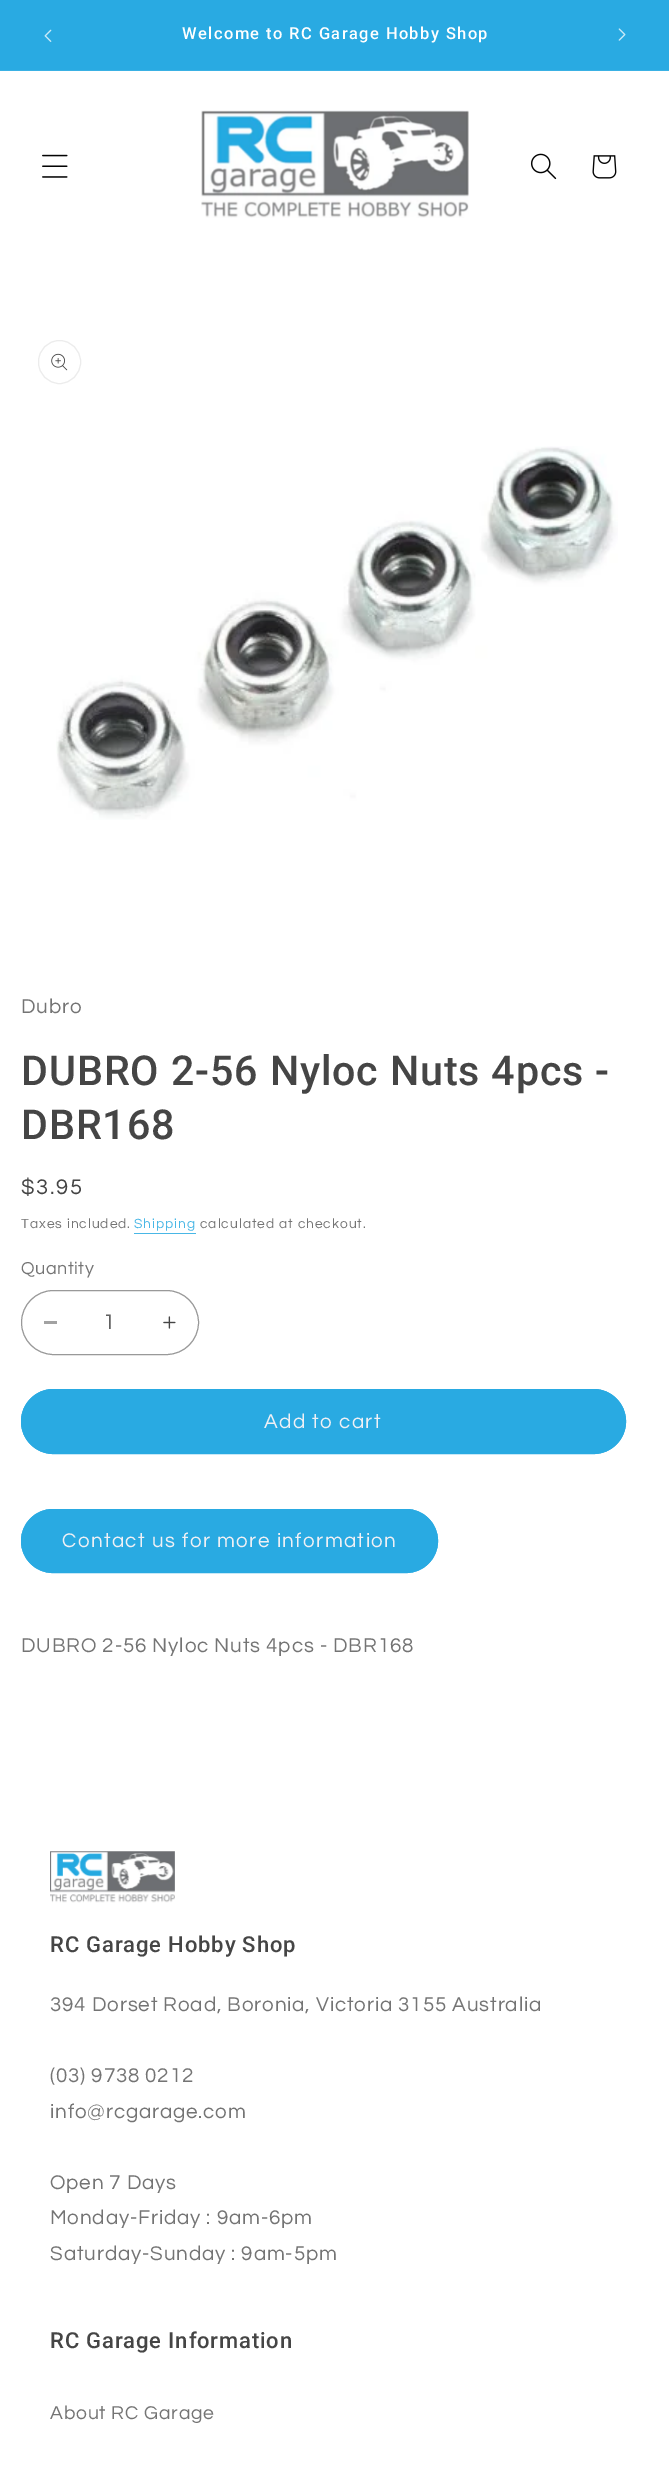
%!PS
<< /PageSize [669 2470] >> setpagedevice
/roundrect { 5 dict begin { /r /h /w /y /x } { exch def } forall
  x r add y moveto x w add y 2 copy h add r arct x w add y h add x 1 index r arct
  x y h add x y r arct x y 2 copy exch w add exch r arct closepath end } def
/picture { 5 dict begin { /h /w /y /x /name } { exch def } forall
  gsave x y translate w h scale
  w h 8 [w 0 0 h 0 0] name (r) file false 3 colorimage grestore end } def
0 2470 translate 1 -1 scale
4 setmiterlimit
1 setgray
0 0 669 2470 rectfill
0.161 0.667 0.886 setrgbcolor
0 0 669 70 rectfill
0.227 0.694 0.894 setrgbcolor
0 70 669 1 rectfill
(img1.rgb) 44 29 8 13 picture
/Roboto-Medium [16.5 0 0 -16.5 0 0] selectfont
1 setgray
182 39 moveto 1.4 0 (Welcome to RC Garage Hobby Shop) ashow
(img2.rgb) 618 28 8 13 picture
(img3.rgb) 42 154 26 24 picture
(img4.rgb) 201 110 268 108 picture
(img5.rgb) 530 153 27 27 picture
(img6.rgb) 592 155 25 24 picture
0.925 setgray
38.5 340.5 42 43 21 roundrect stroke
(img7.rgb) 51 353 17 18 picture
(img8.rgb) 56 446 562 374 picture
/Questrial-Regular [20.6 0 0 -20.6 0 0] selectfont
0.455 setgray
21 1013 moveto 0.85 0 (Dubro) ashow
/Roboto-Medium [41.25 0 0 -41.25 0 0] selectfont
0.271 setgray
21 1085 moveto 0.85 0 (DUBRO 2-56 Nyloc Nuts 4pcs -) ashow
21 1139 moveto 0.85 0 (DBR168) ashow
/Questrial-Regular [22 0 0 -22 0 0] selectfont
21 1194 moveto 1.75 0 ($3.95) ashow
/Questrial-Regular [13.75 0 0 -13.75 0 0] selectfont
0.455 setgray
21 1228 moveto 1 0 (Taxes included.) ashow
0.286 0.718 0.902 setrgbcolor
134 1228 moveto 1 0 (Shipping) ashow
134 1233 62 1 rectfill
0.455 setgray
200 1228 moveto 1 0 (calculated at checkout.) ashow
/Questrial-Regular [18 0 0 -18 0 0] selectfont
21 1274 moveto 0.5 0 (Quantity) ashow
0.635 setgray
44 1321 13 3 rectfill
(img9.rgb) 163 1316 13 13 picture
0.6 setgray
21.5 1290.5 177 64 32 roundrect stroke
/Questrial-Regular [22 0 0 -22 0 0] selectfont
0.38 setgray
103 1329 moveto (1) show
0.161 0.667 0.886 setrgbcolor
21 1389 605 65 32.5 roundrect fill
21.5 1389.5 604 64 32 roundrect stroke
/Questrial-Regular [20.6 0 0 -20.6 0 0] selectfont
0.937 0.941 0.961 setrgbcolor
264 1428 moveto 1.4 0 (Add to cart) ashow
0.161 0.667 0.886 setrgbcolor
21 1509 417 64 32 roundrect fill
21.5 1509.5 416 63 31.5 roundrect stroke
0.937 0.941 0.961 setrgbcolor
62 1547 moveto 1.4 0 (Contact us for more information) ashow
0.455 setgray
21 1652 moveto 0.85 0 (DUBRO 2-56 Nyloc Nuts 4pcs - DBR168) ashow
(img10.rgb) 50 1851 125 52 picture
/Roboto-Medium [22 0 0 -22 0 0] selectfont
0.271 setgray
50 1952 moveto 0.85 0 (RC Garage Hobby Shop) ashow
/Questrial-Regular [20.6 0 0 -20.6 0 0] selectfont
0.455 setgray
50 2011 moveto 0.85 0 (394 Dorset Road, Boronia, Victoria 3155 Australia) ashow
50 2082 moveto 0.85 0 (\(03\) 9738 0212) ashow
50 2118 moveto 0.85 0 (info@rcgarage.com) ashow
50 2189 moveto 0.85 0 (Open 7 Days) ashow
50 2224 moveto 0.85 0 (Monday-Friday : 9am-6pm) ashow
50 2260 moveto 0.85 0 (Saturday-Sunday : 9am-5pm) ashow
/Roboto-Medium [22 0 0 -22 0 0] selectfont
0.271 setgray
50 2348 moveto 0.85 0 (RC Garage Information) ashow
/Questrial-Regular [19.25 0 0 -19.25 0 0] selectfont
0.455 setgray
50 2419 moveto 0.85 0 (About RC Garage) ashow
showpage
